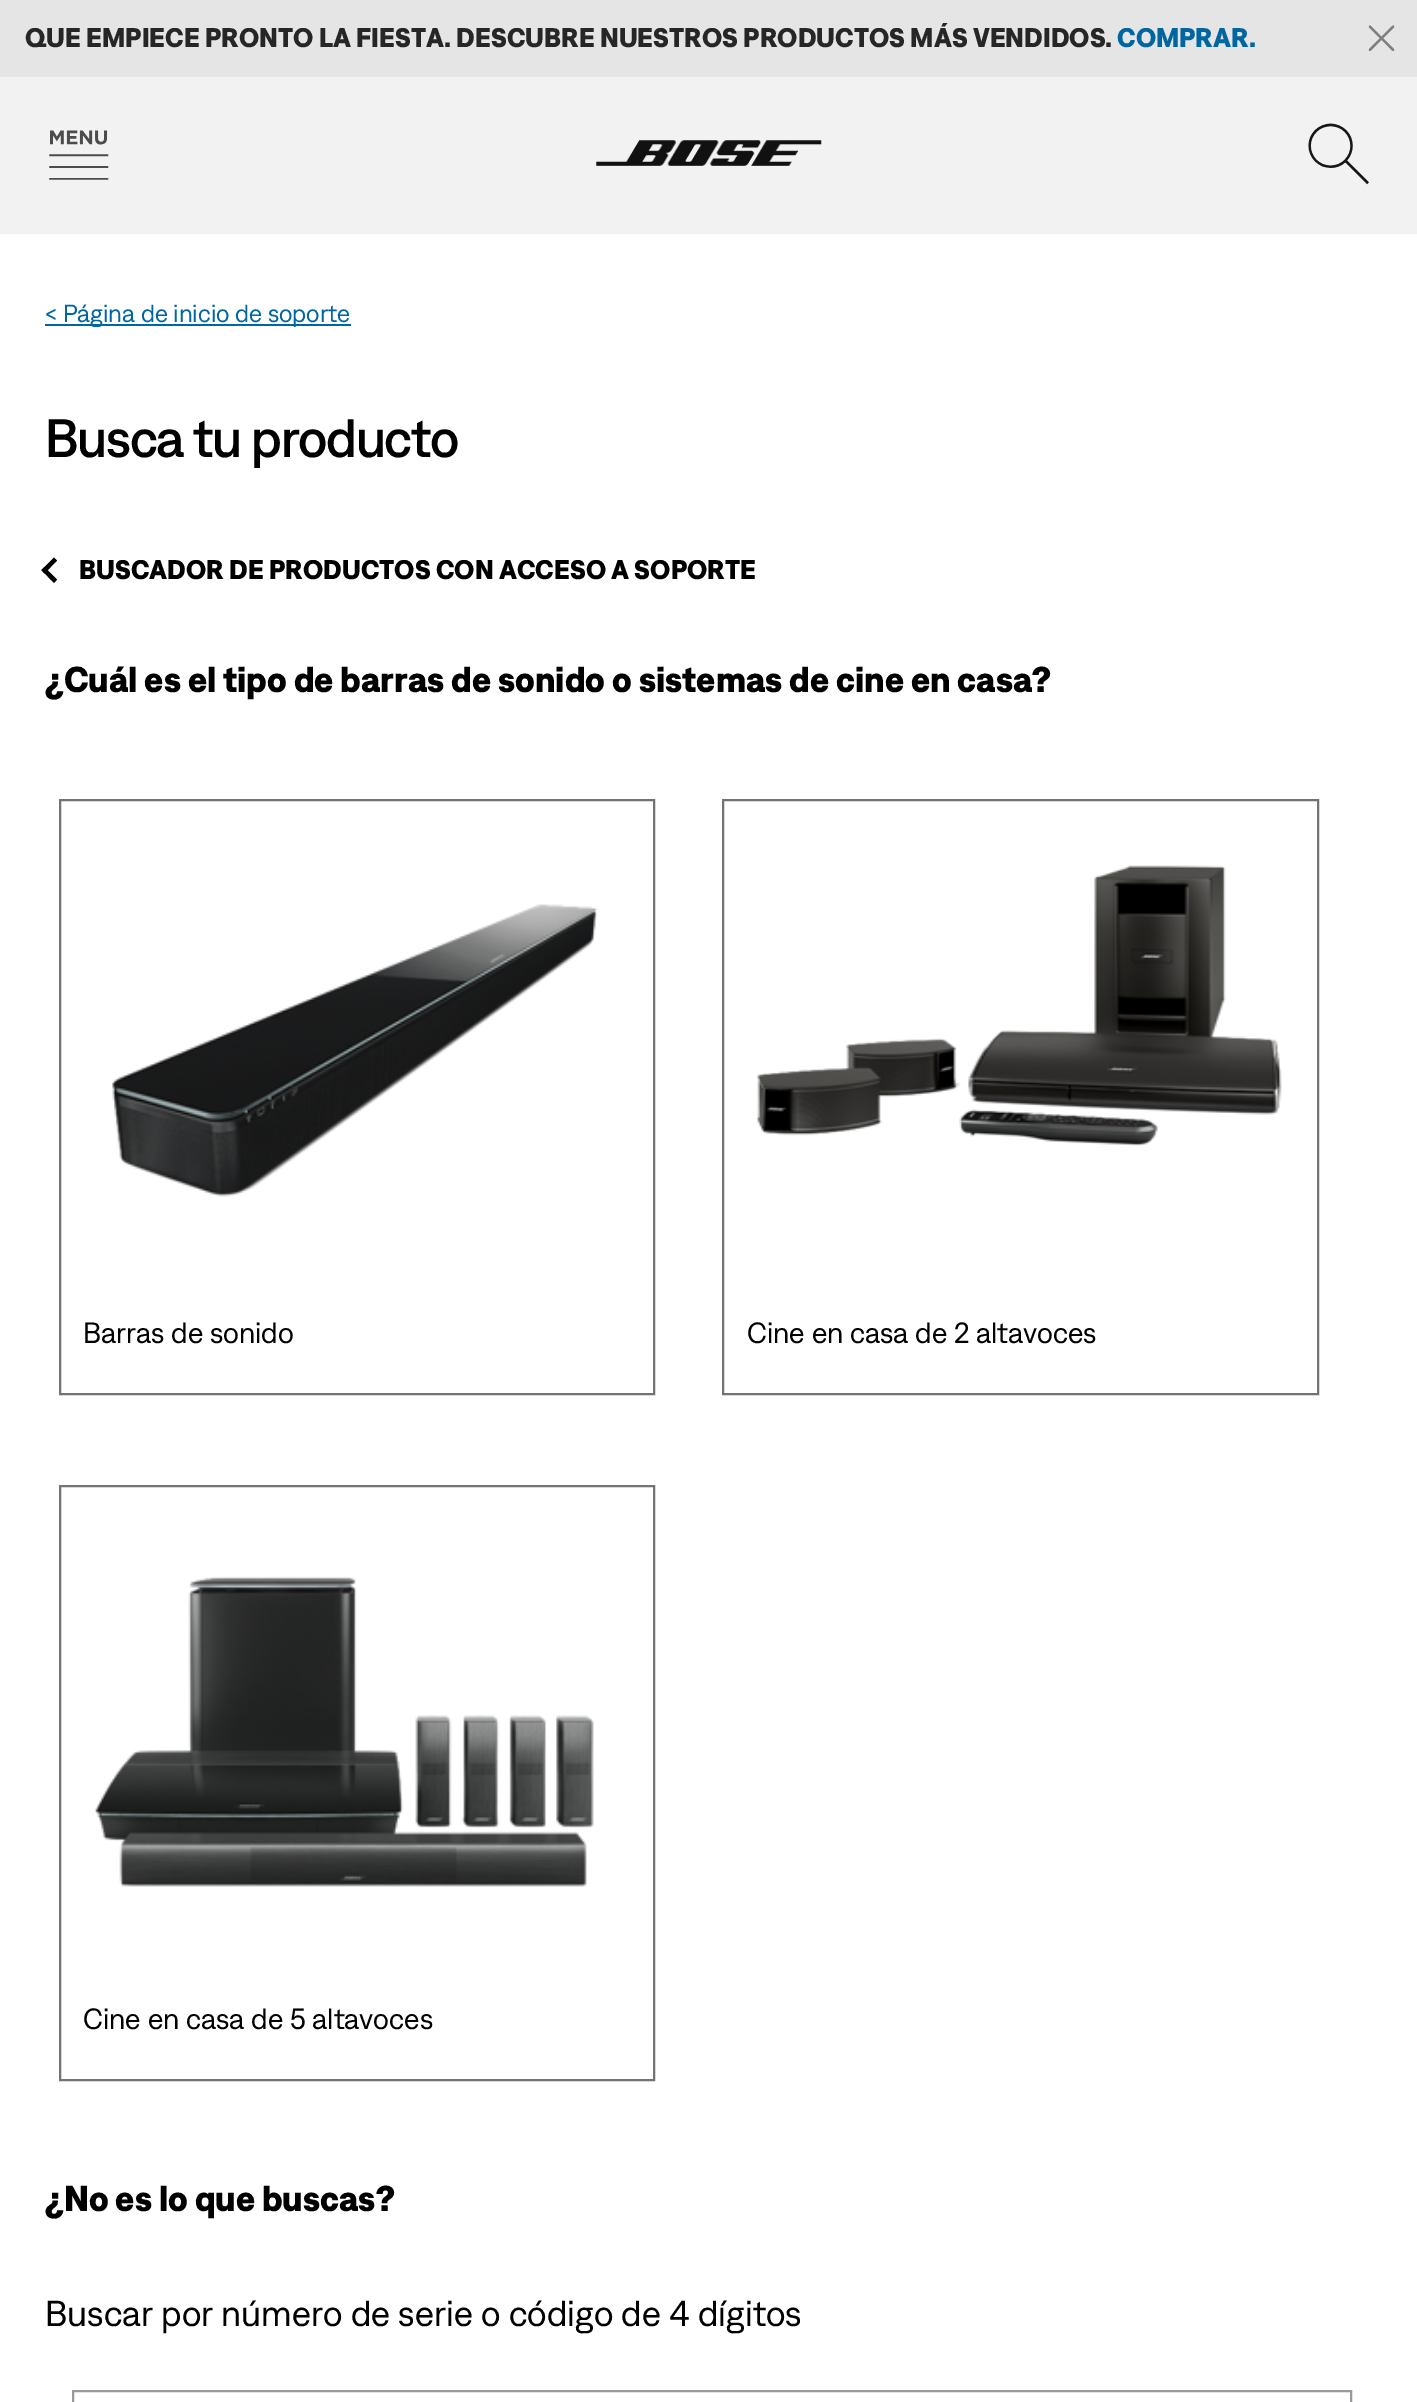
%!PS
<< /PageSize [1417 2402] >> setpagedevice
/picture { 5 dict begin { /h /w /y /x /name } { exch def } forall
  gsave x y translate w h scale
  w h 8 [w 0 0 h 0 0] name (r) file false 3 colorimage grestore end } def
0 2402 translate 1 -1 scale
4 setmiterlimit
0.949 setgray
0 0 1417 2402 rectfill
0.898 setgray
0 0 1417 77 rectfill
/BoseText-Bold [27 0 0 -27 0 0] selectfont
0.149 setgray
25 47 moveto (QUE EMPIECE PRONTO LA FIESTA. DESCUBRE NUESTROS PRODUCTOS MÁS VENDIDOS.) show
0 0.4 0.631 setrgbcolor
1117 47 moveto (COMPRAR.) show
(img1.rgb) 1368 25 27 26 picture
(img2.rgb) 49 130 60 50 picture
(img3.rgb) 596 140 226 26 picture
(img4.rgb) 1308 123 61 62 picture
1 setgray
0 234 1417 2168 rectfill
0 0.4 0.631 setrgbcolor
45 324 306 2 rectfill
/BoseText-Regular [24.75 0 0 -24.75 0 0] selectfont
45 322 moveto (< Página de inicio de soporte) show
/BoseText-Medium [54 0 0 -54 0 0] selectfont
0 setgray
45 457 moveto -1.4 0 (Busca tu producto) ashow
newpath 57 579.5 moveto 54 583 lineto 41.5 570 lineto 44.5 567 lineto closepath fill
newpath 57 560.5 moveto 44.5 573.5 lineto 41.5 570 lineto 54 557.5 lineto closepath fill
/BoseText-Bold [27 0 0 -27 0 0] selectfont
79 579 moveto (BUSCADOR DE PRODUCTOS CON ACCESO A SOPORTE) show
/BoseText-Bold [36 0 0 -36 0 0] selectfont
45 692 moveto (¿Cuál es el tipo de barras de sonido o sistemas de cine en casa?) show
0.451 setgray
2 setlinewidth
60 800 594 594 rectstroke
(img5.rgb) 112 904 486 293 picture
/BoseText-Regular [29.25 0 0 -29.25 0 0] selectfont
0 setgray
83 1343 moveto (Barras de sonido) show
0.451 setgray
723 800 595 594 rectstroke
(img6.rgb) 756 865 526 281 picture
0 setgray
747 1343 moveto (Cine en casa de 2 altavoces) show
0.451 setgray
60 1486 594 594 rectstroke
(img7.rgb) 95 1576 499 311 picture
0 setgray
83 2029 moveto (Cine en casa de 5 altavoces) show
/BoseText-Bold [36 0 0 -36 0 0] selectfont
45 2211 moveto (¿No es lo que buscas?) show
/BoseText-Regular [36 0 0 -36 0 0] selectfont
45 2326 moveto (Buscar por número de serie o código de 4 dígitos) show
0.6 setgray
73 2391 1278 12 rectstroke
showpage
